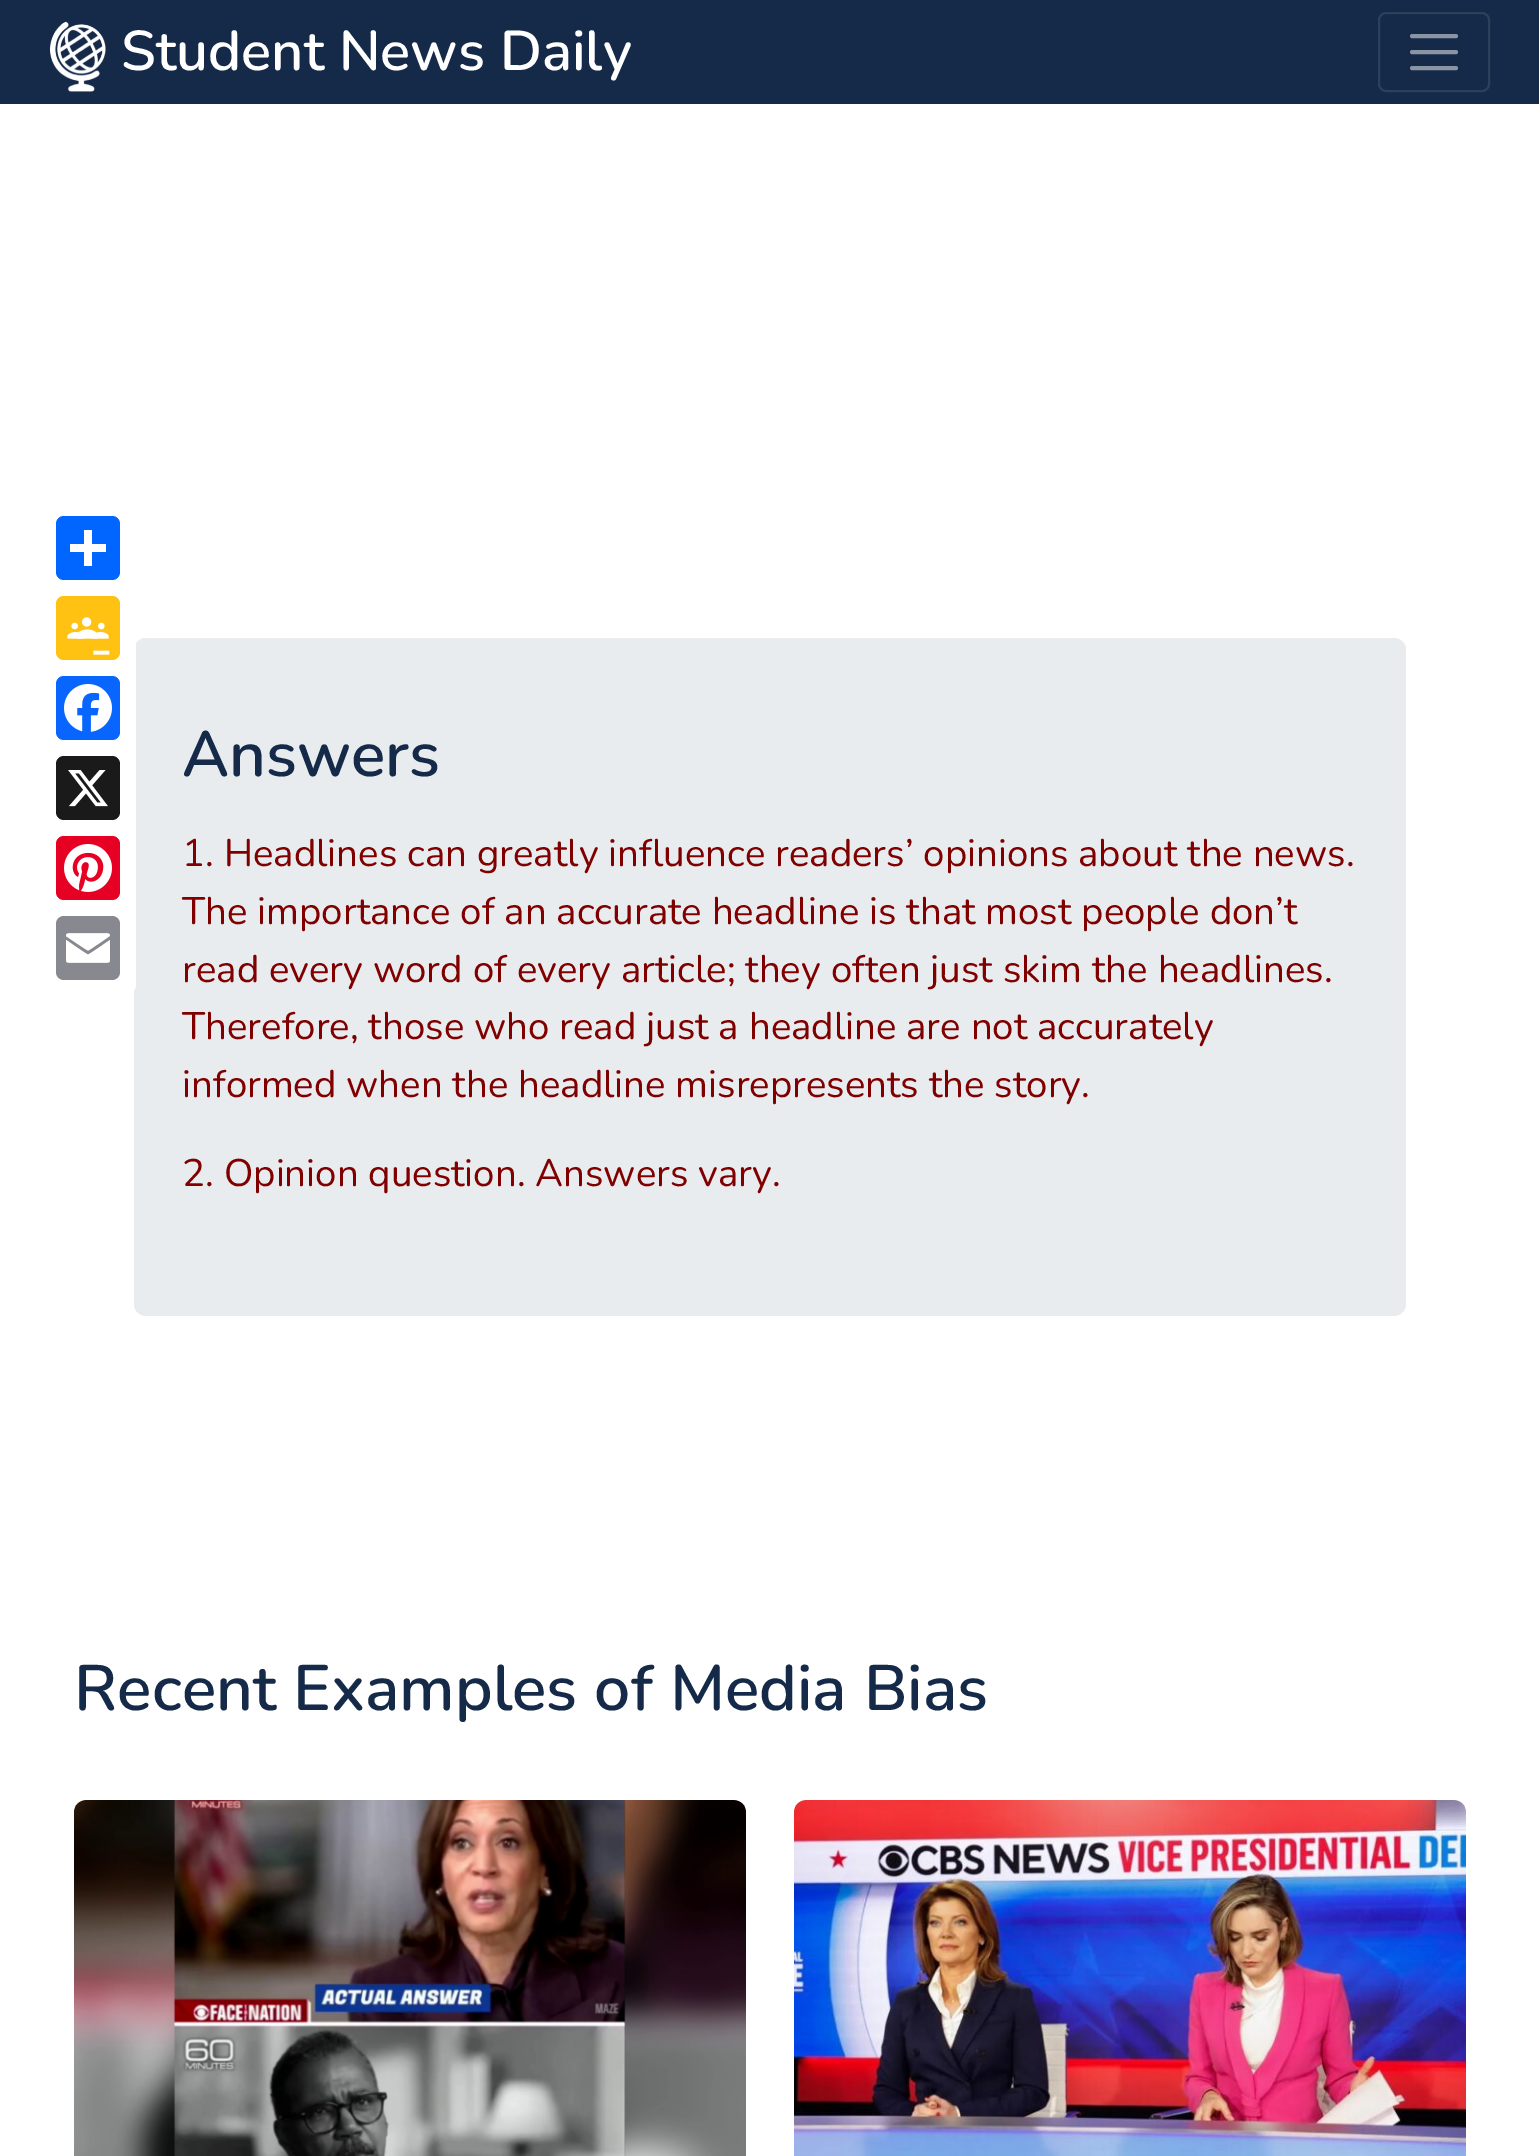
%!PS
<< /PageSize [1539 2156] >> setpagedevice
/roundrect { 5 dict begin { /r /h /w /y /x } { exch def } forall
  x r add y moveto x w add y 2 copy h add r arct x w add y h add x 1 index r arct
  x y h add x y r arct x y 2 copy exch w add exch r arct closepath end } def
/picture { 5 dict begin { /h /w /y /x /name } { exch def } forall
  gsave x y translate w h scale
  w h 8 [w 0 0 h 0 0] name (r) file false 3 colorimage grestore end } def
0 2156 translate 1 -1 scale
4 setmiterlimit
1 setgray
0 0 1539 2156 rectfill
0.082 0.165 0.286 setrgbcolor
0 0 1539 104 rectfill
(img1.rgb) 50 21 56 71 picture
/Nunito-SemiBold [56 0 0 -56 0 0] selectfont
1 setgray
121 70 moveto (Student News Daily) show
0.173 0.247 0.357 setrgbcolor
2 setlinewidth
1379 13 110 78 7 roundrect stroke
0.541 0.584 0.643 setrgbcolor
4 setlinewidth
1 setlinecap
newpath 1412 36 moveto 1456 36 lineto 1412 52 moveto 1456 52 lineto 1412 68 moveto 1456 68 lineto stroke
0.914 0.925 0.937 setrgbcolor
134 638 1272 678 12 roundrect fill
1 setgray
40 500 96 496 12 roundrect fill
0.004 0.4 1 setrgbcolor
56 516 64 64 8 roundrect fill
1 setgray
84 530 8 36 rectfill
70 544 36 8 rectfill
1 0.757 0.071 setrgbcolor
56 596 64 64 8 roundrect fill
(img2.rgb) 67 617 43 38 picture
0.031 0.4 1 setrgbcolor
56 676 64 64 8 roundrect fill
(img3.rgb) 64 684 48 48 picture
0.102 setgray
56 756 64 64 8 roundrect fill
(img4.rgb) 68 770 40 37 picture
0.902 0 0.137 setrgbcolor
56 836 64 64 8 roundrect fill
(img5.rgb) 64 844 48 48 picture
0.533 0.537 0.565 setrgbcolor
56 916 64 64 8 roundrect fill
(img6.rgb) 66 933 44 30 picture
/Nunito-SemiBold [64 0 0 -64 0 0] selectfont
0.082 0.165 0.286 setrgbcolor
182 776 moveto (Answers) show
/Nunito-Regular [38.4 0 0 -38.4 0 0] selectfont
0.502 0 0 setrgbcolor
182 866 moveto (1. Headlines can greatly influence readers’ opinions about the news.) show
182 924 moveto (The importance of an accurate headline is that most people don’t) show
182 982 moveto (read every word of every article; they often just skim the headlines.) show
182 1039 moveto (Therefore, those who read just a headline are not accurately) show
182 1097 moveto (informed when the headline misrepresents the story.) show
182 1186 moveto (2. Opinion question. Answers vary.) show
/Nunito-SemiBold [64 0 0 -64 0 0] selectfont
0.082 0.165 0.286 setrgbcolor
74 1710 moveto (Recent Examples of Media Bias) show
(img7.rgb) 74 1800 672 356 picture
(img8.rgb) 794 1800 672 356 picture
showpage
